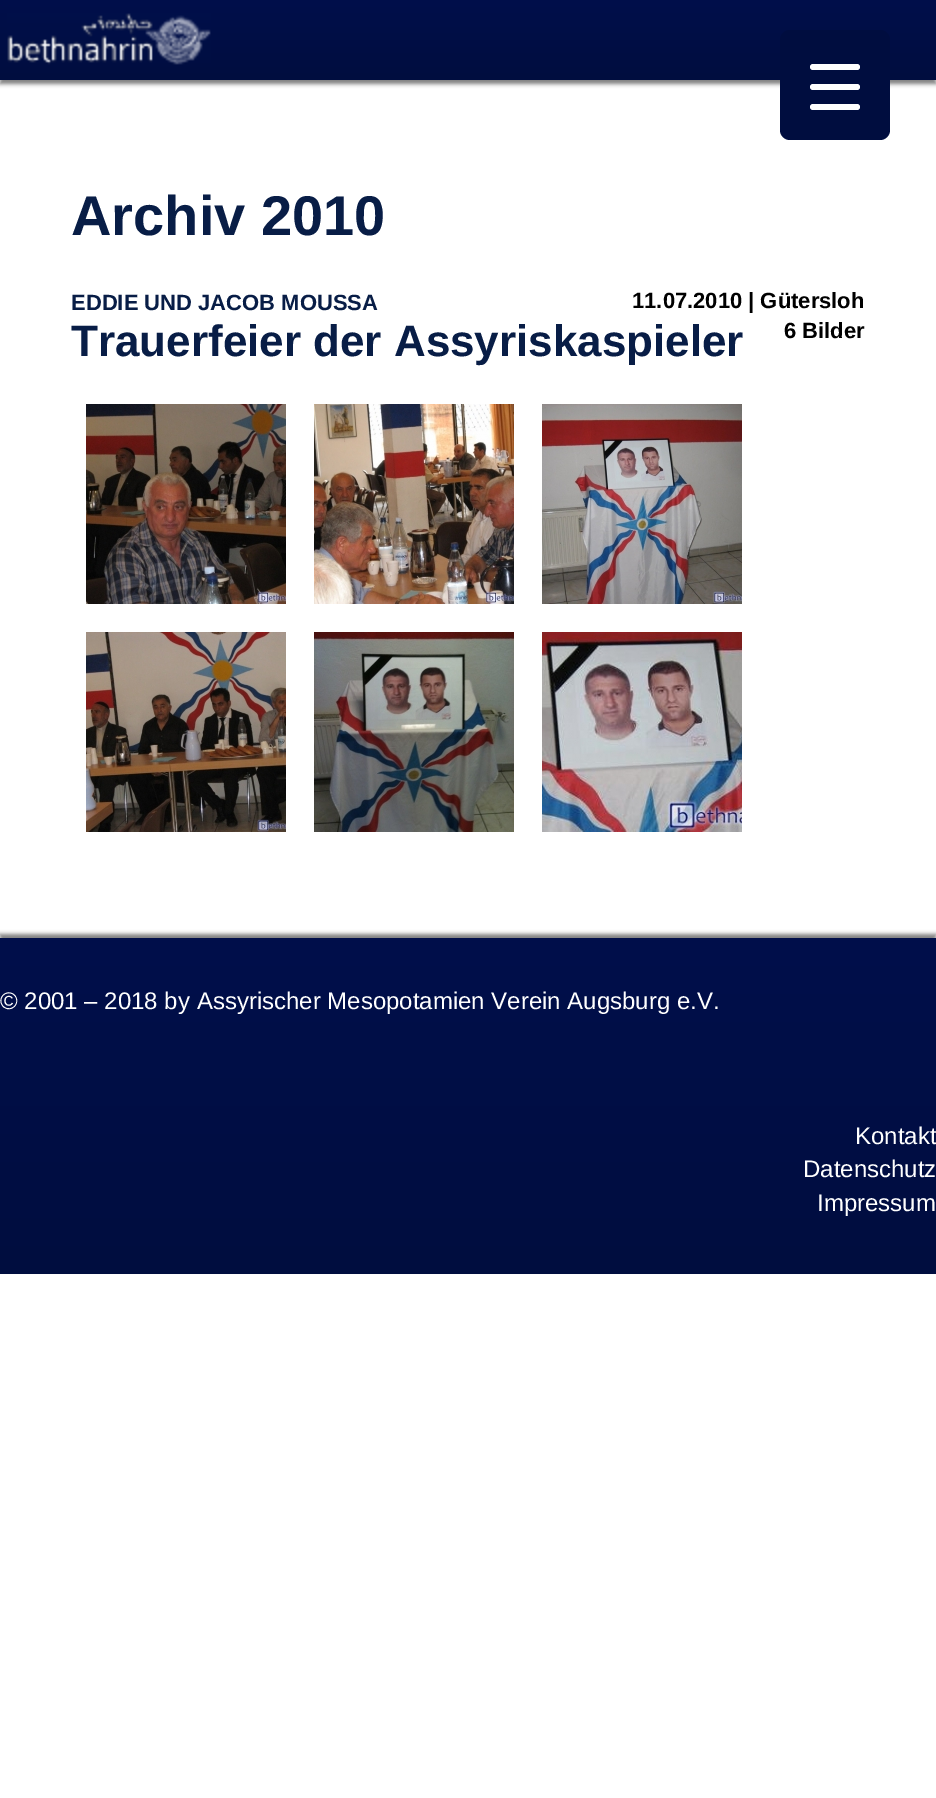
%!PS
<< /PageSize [936 1798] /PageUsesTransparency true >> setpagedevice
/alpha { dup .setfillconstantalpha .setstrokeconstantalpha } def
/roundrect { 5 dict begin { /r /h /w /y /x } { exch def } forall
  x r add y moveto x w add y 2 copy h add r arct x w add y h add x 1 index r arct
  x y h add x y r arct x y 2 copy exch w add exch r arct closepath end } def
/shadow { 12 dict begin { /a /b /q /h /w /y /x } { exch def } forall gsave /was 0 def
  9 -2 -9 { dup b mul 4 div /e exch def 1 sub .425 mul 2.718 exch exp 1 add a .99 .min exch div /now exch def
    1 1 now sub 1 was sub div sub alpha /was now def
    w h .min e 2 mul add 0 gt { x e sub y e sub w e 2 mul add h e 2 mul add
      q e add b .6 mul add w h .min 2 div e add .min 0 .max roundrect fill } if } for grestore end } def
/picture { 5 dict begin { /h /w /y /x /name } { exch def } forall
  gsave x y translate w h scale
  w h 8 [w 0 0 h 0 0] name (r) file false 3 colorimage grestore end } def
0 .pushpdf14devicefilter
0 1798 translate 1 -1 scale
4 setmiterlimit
1 setgray
0 0 936 1798 rectfill
0 setgray
0 4 936 80 0 2 0.5 shadow
gsave newpath 0 0 moveto 936 0 lineto 936 80 lineto 0 80 lineto closepath clip newpath
<< /ShadingType 2 /ColorSpace /DeviceRGB /Coords [468 0 468 80] /Extend [true true] /Function << /FunctionType 2 /Domain [0 1] /C0 [0 0.059 0.294] /C1 [0 0.051 0.247] /N 1 >> >> shfill grestore
(img1.rgb) 7 13 204 52 picture
0 0.051 0.247 setrgbcolor
780 30 110 110 10 roundrect fill
1 setgray
810 84 50 6 3 roundrect fill
810 64 50 6 3 roundrect fill
810 104 50 6 3 roundrect fill
/LiberationSans-Bold [56 0 0 -56 0 0] selectfont
0.031 0.114 0.275 setrgbcolor
71 235 moveto (Archiv 2010) show
/LiberationSans-Bold [22 0 0 -22 0 0] selectfont
71 310 moveto (EDDIE UND JACOB MOUSSA) show
0 setgray
632 308 moveto (11.07.2010 | Gütersloh) show
/LiberationSans-Bold [44 0 0 -44 0 0] selectfont
0.031 0.114 0.275 setrgbcolor
71 356 moveto (Trauerfeier der Assyriskaspieler) show
/LiberationSans-Bold [22 0 0 -22 0 0] selectfont
0 setgray
784 338 moveto (6 Bilder) show
(img2.rgb) 86 404 200 200 picture
(img3.rgb) 314 404 200 200 picture
(img4.rgb) 542 404 200 200 picture
(img5.rgb) 86 632 200 200 picture
(img6.rgb) 314 632 200 200 picture
(img7.rgb) 542 632 200 200 picture
0 934 936 336 0 2 0.5 shadow
gsave newpath 0 938 moveto 936 938 lineto 936 1274 lineto 0 1274 lineto closepath clip newpath
<< /ShadingType 2 /ColorSpace /DeviceRGB /Coords [468 938 468 1274] /Extend [true true] /Function << /FunctionType 2 /Domain [0 1] /C0 [0 0.059 0.294] /C1 [0 0.051 0.247] /N 1 >> >> shfill grestore
/LiberationSans-Regular [24 0 0 -24 0 0] selectfont
1 setgray
0 1009 moveto (© 2001 – 2018 by Assyrischer Mesopotamien Verein Augsburg e.V.) show
855 1144 moveto (Kontakt) show
803 1177 moveto (Datenschutz) show
817 1211 moveto (Impressum) show
.poppdf14devicefilter showpage
